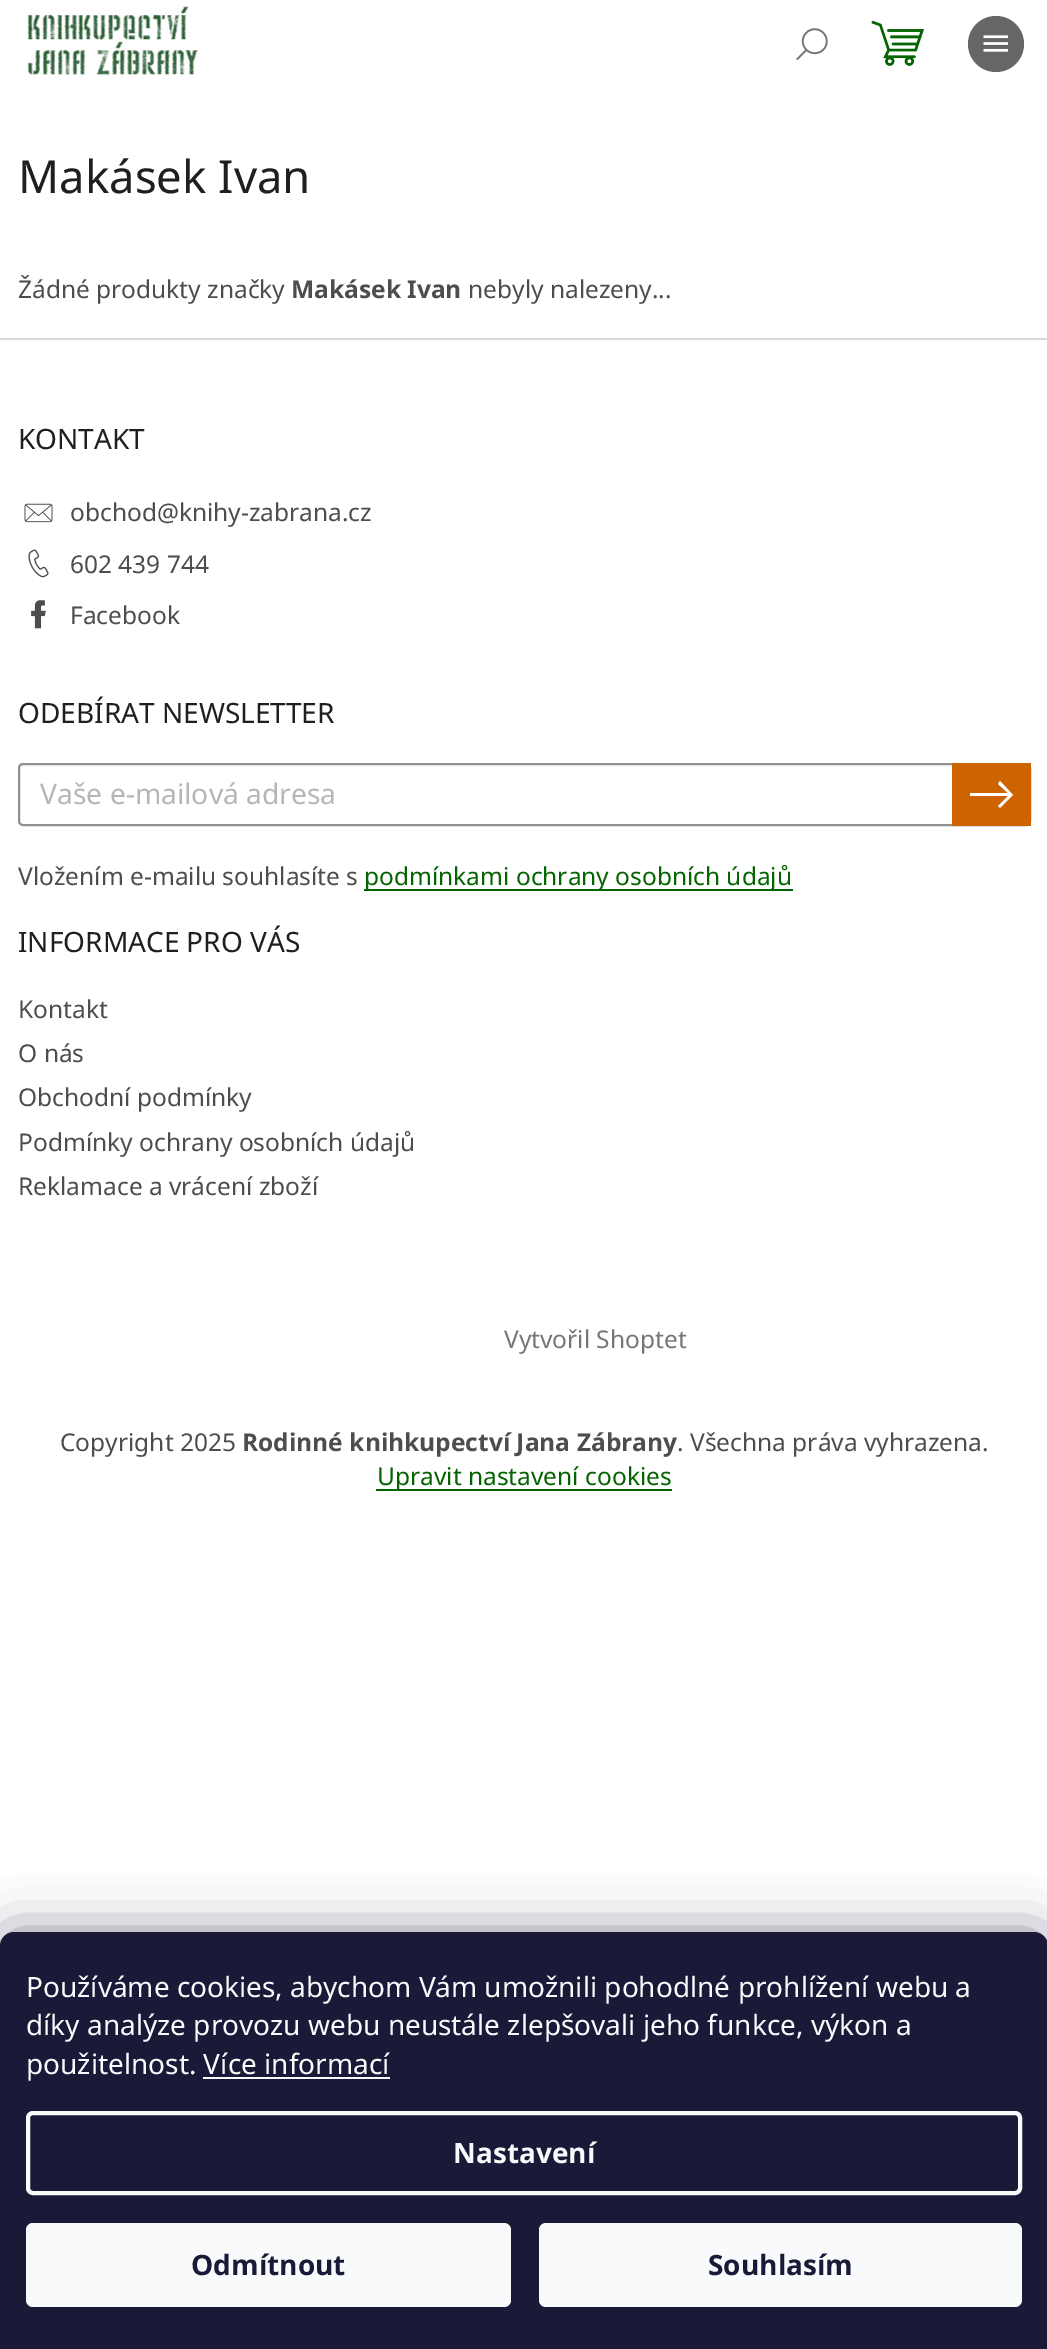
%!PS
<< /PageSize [1047 2349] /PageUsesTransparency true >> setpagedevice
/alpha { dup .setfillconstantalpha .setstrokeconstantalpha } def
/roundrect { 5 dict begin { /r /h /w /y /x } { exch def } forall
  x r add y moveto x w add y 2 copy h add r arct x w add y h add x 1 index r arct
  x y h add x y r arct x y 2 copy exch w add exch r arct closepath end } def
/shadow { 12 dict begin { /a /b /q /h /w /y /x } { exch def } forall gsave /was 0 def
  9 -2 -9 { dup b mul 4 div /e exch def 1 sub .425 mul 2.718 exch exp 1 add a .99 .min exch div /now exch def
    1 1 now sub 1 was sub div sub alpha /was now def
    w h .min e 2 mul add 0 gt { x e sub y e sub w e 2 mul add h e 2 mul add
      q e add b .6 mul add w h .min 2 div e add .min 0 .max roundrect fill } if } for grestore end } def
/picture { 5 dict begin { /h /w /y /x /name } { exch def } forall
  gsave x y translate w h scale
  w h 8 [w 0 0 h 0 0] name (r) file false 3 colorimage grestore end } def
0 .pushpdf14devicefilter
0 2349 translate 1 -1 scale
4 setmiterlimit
1 setgray
0 0 1047 2349 rectfill
(img1.rgb) 27 6 171 70 picture
(img2.rgb) 871 20 53 46 picture
(img3.rgb) 796 28 32 33 picture
0.4 setgray
newpath 996 44 28 0 360 arc closepath fill
(img4.rgb) 983 35 25 17 picture
/NotoSans-Regular [45.5 0 0 -45.5 0 0] selectfont
0.122 setgray
18 193 moveto (Makásek Ivan) show
/NotoSans-Regular [24.5 0 0 -24.5 0 0] selectfont
0.302 setgray
18 298 moveto (Žádné produkty značky) show
/NotoSans-Bold [24.5 0 0 -24.5 0 0] selectfont
291 298 moveto (Makásek Ivan) show
/NotoSans-Regular [24.5 0 0 -24.5 0 0] selectfont
468 298 moveto (nebyly nalezeny...) show
0.855 setgray
0 338 1047 2 rectfill
/NotoSans-Regular [28 0 0 -28 0 0] selectfont
0.122 setgray
18 449 moveto (KONTAKT) show
(img5.rgb) 24 503 29 20 picture
/NotoSans-Regular [24.5 0 0 -24.5 0 0] selectfont
0.302 setgray
70 521 moveto (obchod@knihy-zabrana.cz) show
(img6.rgb) 28 549 21 29 picture
70 573 moveto (602 439 744) show
(img7.rgb) 31 600 15 29 picture
70 624 moveto (Facebook) show
/NotoSans-Regular [28 0 0 -28 0 0] selectfont
0.122 setgray
18 723 moveto (ODEBÍRAT NEWSLETTER) show
0.569 setgray
2 setlinewidth
19 764 1011 61 4 roundrect stroke
/NotoSans-Regular [28.25 0 0 -28.25 0 0] selectfont
0.714 setgray
40 804 moveto (Vaše e-mailová adresa) show
0.808 0.388 0.004 setrgbcolor
952 763 79 63 rectfill
1 setgray
newpath 1000 781 moveto 1013 795 lineto 1000 808 lineto 998 806 lineto 1008 796 lineto 970 796 lineto 970 793 lineto 1008 793 lineto 998 784 lineto closepath fill
/NotoSans-Regular [24.5 0 0 -24.5 0 0] selectfont
0.302 setgray
18 885 moveto (Vložením e-mailu souhlasíte s) show
0.012 0.392 0 setrgbcolor
364 889 429 2 rectfill
364 885 moveto (podmínkami ochrany osobních údajů) show
/NotoSans-Regular [28 0 0 -28 0 0] selectfont
0.122 setgray
18 952 moveto (INFORMACE PRO VÁS) show
/NotoSans-Regular [24.5 0 0 -24.5 0 0] selectfont
0.302 setgray
18 1018 moveto (Kontakt) show
18 1062 moveto (O nás) show
18 1106 moveto (Obchodní podmínky) show
18 1151 moveto (Podmínky ochrany osobních údajů) show
18 1195 moveto (Reklamace a vrácení zboží) show
0.463 setgray
504 1348 moveto (Vytvořil Shoptet) show
0.302 setgray
60 1451 moveto (Copyright 2025) show
/NotoSans-Bold [24.5 0 0 -24.5 0 0] selectfont
242 1451 moveto (Rodinné knihkupectví Jana Zábrany) show
/NotoSans-Regular [24.5 0 0 -24.5 0 0] selectfont
677 1451 moveto (. Všechna práva vyhrazena.) show
0.012 0.392 0 setrgbcolor
376 1489 296 2 rectfill
377 1485 moveto (Upravit nastavení cookies) show
0.106 0.098 0.224 setrgbcolor
0 1932 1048 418 14 26 0.5 shadow
0.102 0.098 0.216 setrgbcolor
newpath 14 1932 moveto 1034 1932 lineto 1041.5 1932 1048 1938.5 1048 1946 curveto 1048 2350 lineto 0 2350 lineto 0 1946 lineto 0 1938.5 6.5 1932 14 1932 curveto closepath fill
/NotoSans-Regular [28 0 0 -28 0 0] selectfont
0.973 0.98 0.984 setrgbcolor
26 1997 moveto (Používáme cookies, abychom Vám umožnili pohodlné prohlížení webu a) show
26 2035 moveto (díky analýze provozu webu neustále zlepšovali jeho funkce, výkon a) show
26 2074 moveto (použitelnost. Více informací) show
203 2077 187 2 rectfill
4 setlinewidth
28 2113 992 80 5 roundrect stroke
/NotoSans-Bold [28 0 0 -28 0 0] selectfont
453 2163 moveto (Nastavení) show
26 2223 485 84 7 roundrect fill
0.102 0.098 0.216 setrgbcolor
191 2275 moveto (Odmítnout) show
0.973 0.98 0.984 setrgbcolor
539 2223 483 84 7 roundrect fill
0.102 0.098 0.216 setrgbcolor
708 2275 moveto (Souhlasím) show
.poppdf14devicefilter showpage
